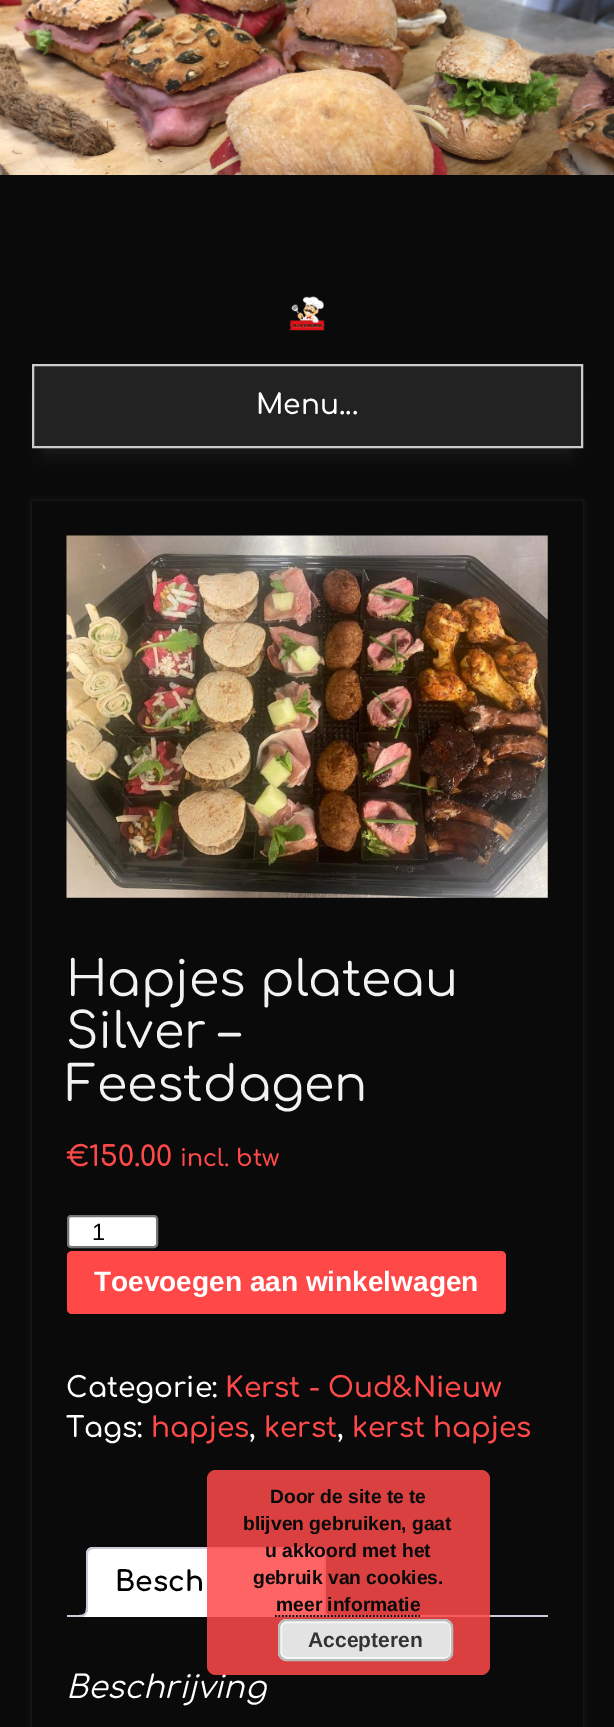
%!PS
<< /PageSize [614 1727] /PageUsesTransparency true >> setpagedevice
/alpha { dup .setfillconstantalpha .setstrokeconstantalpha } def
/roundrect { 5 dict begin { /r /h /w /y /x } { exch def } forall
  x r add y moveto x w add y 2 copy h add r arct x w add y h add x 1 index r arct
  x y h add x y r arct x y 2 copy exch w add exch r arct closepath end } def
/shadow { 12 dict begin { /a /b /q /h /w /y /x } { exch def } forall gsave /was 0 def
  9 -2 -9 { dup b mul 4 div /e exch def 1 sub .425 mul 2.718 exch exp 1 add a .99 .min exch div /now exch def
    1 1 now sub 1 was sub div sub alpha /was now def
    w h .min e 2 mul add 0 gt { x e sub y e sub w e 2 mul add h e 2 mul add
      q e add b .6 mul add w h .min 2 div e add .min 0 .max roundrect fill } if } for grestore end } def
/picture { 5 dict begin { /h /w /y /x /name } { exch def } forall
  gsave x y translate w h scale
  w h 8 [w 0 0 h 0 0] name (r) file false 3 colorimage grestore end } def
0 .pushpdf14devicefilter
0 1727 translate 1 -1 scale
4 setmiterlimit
0.039 setgray
0 0 614 1727 rectfill
(img1.rgb) 0 0 614 175 picture
(img2.rgb) 289 296 36 35 picture
0.133 setgray
46 396 523 56 0 9 1 shadow
newpath 33 365 moveto 582 365 lineto 582 447 lineto 33 447 lineto closepath gsave fill grestore
0.8 setgray
2 setlinewidth
stroke
/Comfortaa-SemiBold [28 0 0 -28 0 0] selectfont
1 setgray
256 414 moveto (Menu...) show
gsave
newpath 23 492 moveto 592 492 lineto 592 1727 lineto 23 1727 lineto closepath 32 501 moveto 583 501 lineto 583 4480 lineto 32 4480 lineto closepath eoclip newpath
0.392 setgray
32 501 551 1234 0 2.5 0.3 shadow
grestore
(img3.rgb) 66 535 482 363 picture
/Comfortaa-Regular [49 0 0 -49 0 0] selectfont
0.949 setgray
66 996 moveto (Hapjes plateau) show
66 1048 moveto (Silver –) show
66 1101 moveto (Feestdagen) show
/Comfortaa-SemiBold [28 0 0 -28 0 0] selectfont
1 0.286 0.286 setrgbcolor
66 1166 moveto (€150.00) show
/Comfortaa-SemiBold [23.5 0 0 -23.5 0 0] selectfont
180 1166 moveto (incl. btw) show
1 setgray
68 1216 89 31 3 roundrect gsave fill grestore
0.463 setgray
stroke
/LiberationSans-Regular [23.5 0 0 -23.5 0 0] selectfont
0 setgray
92 1240 moveto (1) show
1 0.286 0.286 setrgbcolor
67 1251 439 63 5 roundrect fill
/LiberationSans-Bold [28 0 0 -28 0 0] selectfont
1 setgray
94 1291 moveto (Toevoegen aan winkelwagen) show
/Comfortaa-SemiBold [28 0 0 -28 0 0] selectfont
66 1397 moveto (Categorie:) show
1 0.286 0.286 setrgbcolor
225 1397 moveto (Kerst - Oud&Nieuw) show
1 setgray
66 1437 moveto (Tags:) show
1 0.286 0.286 setrgbcolor
151 1437 moveto (hapjes) show
1 setgray
249 1437 moveto (,) show
1 0.286 0.286 setrgbcolor
264 1437 moveto (kerst) show
1 setgray
337 1437 moveto (,) show
1 0.286 0.286 setrgbcolor
352 1437 moveto (kerst hapjes) show
0.812 0.784 0.847 setrgbcolor
67 1615 481 2 rectfill
1 setgray
newpath 93 1547 moveto 319 1547 lineto 323 1547 326 1550 326 1554 curveto 326 1617 lineto 86 1617 lineto 86 1554 lineto 86 1550 89 1547 93 1547 curveto closepath fill
0.812 0.784 0.847 setrgbcolor
newpath 93 1547 moveto 91 1547 89 1548 88 1549 curveto 89 1551 lineto 90 1550 91 1549 93 1549 curveto 318 1549 lineto 320 1549 321 1550 322 1550 curveto 324 1549 lineto 322 1548 320 1547 318 1547 curveto closepath fill
newpath 326 1552 moveto 326 1617 lineto 324 1615 lineto 324 1553 lineto 322 1550 lineto 324 1549 lineto closepath fill
1 setgray
newpath 326 1617 moveto 324 1615 lineto 88 1615 lineto 86 1617 lineto closepath fill
0.812 0.784 0.847 setrgbcolor
newpath 88 1549 moveto 87 1550 86 1552 86 1554 curveto 86 1617 lineto 88 1615 lineto 88 1554 lineto 88 1553 88 1551 89 1551 curveto closepath fill
/Comfortaa-Bold [28 0 0 -28 0 0] selectfont
0 setgray
115 1591 moveto (Besch) show
gsave
67 1503 481 114 rectclip
1 setgray
newpath 82 1617 moveto 82 1621 lineto 88.5 1621 91 1618.5 91 1612 curveto 87 1612 lineto 86.5 1614.5 84.5 1616.5 82 1617 curveto closepath fill
grestore
0.812 0.784 0.847 setrgbcolor
newpath 79 1608 moveto 87.5 1608 lineto 87.5 1614.5 85 1617 79 1617 curveto closepath 79 1608 moveto 86 1608 lineto 86 1613.5 84 1615 79 1615 curveto closepath eofill
gsave
67 1503 481 114 rectclip
1 setgray
newpath 320 1612 moveto 320 1618.5 322.5 1621 329 1621 curveto 329 1617 lineto 326.5 1616 324.5 1614.5 324 1612 curveto closepath fill
grestore
newpath 324 1608 moveto 332.5 1608 lineto 332.5 1617 lineto 328 1617 324 1615.5 324 1610 curveto closepath 325.5 1608 moveto 332.5 1608 lineto 332.5 1615 lineto 329 1615 325.5 1614.5 325.5 1610 curveto closepath eofill
/Comfortaa-Italic [31.5 0 0 -31.5 0 0] selectfont
1 setgray
66 1698 moveto (Beschrijving) show
0.85 alpha
1 0.286 0.286 setrgbcolor
207 1470 283 205 9 roundrect fill
/LiberationSans-Bold [19.25 0 0 -19.25 0 0] selectfont
1 alpha
0.039 setgray
270 1503 moveto (Door de site te te) show
243 1530 moveto (blijven gebruiken, gaat) show
265 1557 moveto (u akkoord met het) show
253 1584 moveto (gebruik van cookies.) show
276 1611 moveto (meer informatie) show
1.8 setlinewidth
[1.75 1.75] 0 setdash
newpath 275 1616 moveto 420 1616 lineto stroke
0.89 setgray
278 1619 175 42 9 roundrect fill
0.965 setgray
2 setlinewidth
[] 0 setdash
281 1622 170 36 6 roundrect stroke
0.733 setgray
279 1620 173 40 8 roundrect stroke
/LiberationSans-Bold [21 0 0 -21 0 0] selectfont
0.2 setgray
308 1647 moveto (Accepteren) show
.poppdf14devicefilter showpage
